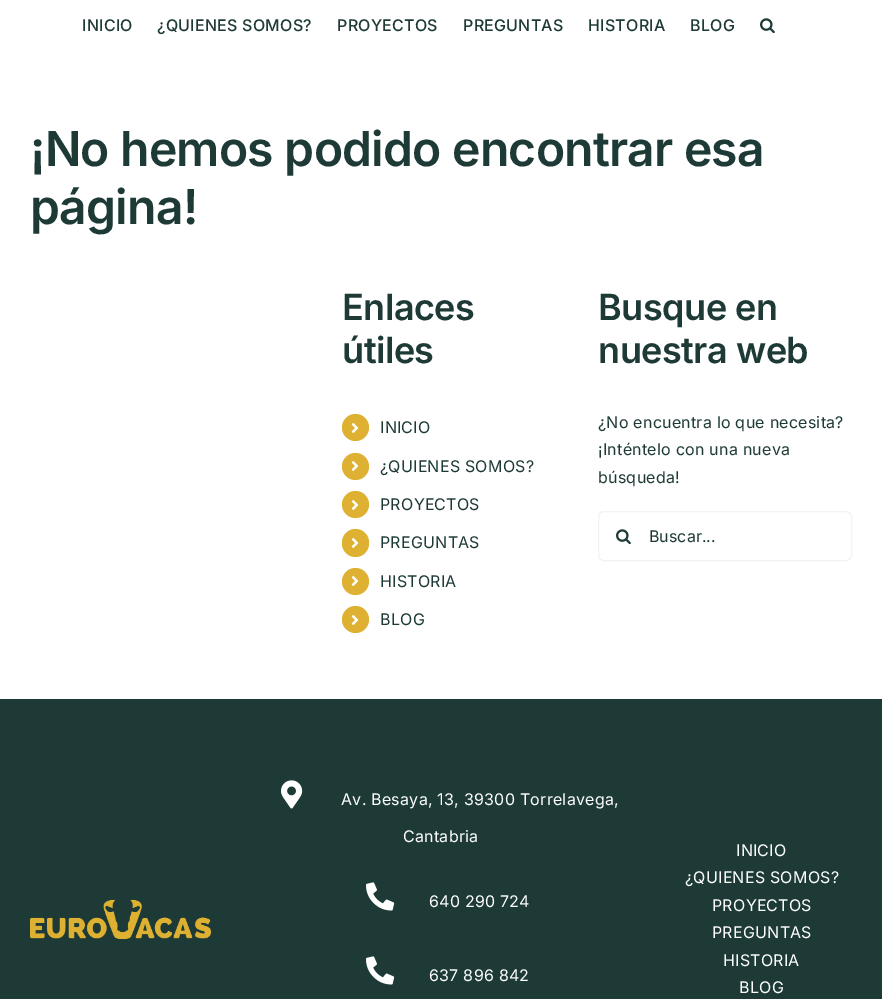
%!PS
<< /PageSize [882 999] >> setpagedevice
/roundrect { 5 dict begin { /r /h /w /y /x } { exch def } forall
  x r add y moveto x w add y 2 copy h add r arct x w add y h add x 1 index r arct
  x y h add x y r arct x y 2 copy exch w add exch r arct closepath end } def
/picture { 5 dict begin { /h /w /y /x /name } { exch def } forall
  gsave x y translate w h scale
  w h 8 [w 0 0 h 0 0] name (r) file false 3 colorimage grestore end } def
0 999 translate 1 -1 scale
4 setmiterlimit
1 setgray
0 0 882 999 rectfill
/Inter-Medium [16 0 0 -16 0 0] selectfont
0.114 0.227 0.212 setrgbcolor
82 31 moveto 0.25 0 (INICIO) ashow
157 31 moveto 0.25 0 (¿QUIENES SOMOS?) ashow
337 31 moveto 0.25 0 (PROYECTOS) ashow
463 31 moveto 0.25 0 (PREGUNTAS) ashow
588 31 moveto 0.25 0 (HISTORIA) ashow
690 31 moveto 0.25 0 (BLOG) ashow
(img1.rgb) 760 18 15 16 picture
/Inter-SemiBold [48 0 0 -48 0 0] selectfont
30 166 moveto -0.75 0 (¡No hemos podido encontrar esa) ashow
30 224 moveto -0.75 0 (página!) ashow
/Inter-SemiBold [36 0 0 -36 0 0] selectfont
342 320 moveto -0.5 0 (Enlaces) ashow
342 363 moveto -0.5 0 (útiles) ashow
0.871 0.694 0.196 setrgbcolor
newpath 355.5 427.5 13.5 0 360 arc closepath fill
(img2.rgb) 351 423 8 10 picture
/Inter-Regular [16 0 0 -16 0 0] selectfont
0.114 0.227 0.212 setrgbcolor
380 433 moveto 0.25 0 (INICIO) ashow
0.871 0.694 0.196 setrgbcolor
newpath 355.5 466.5 13.5 0 360 arc closepath fill
(img2.rgb) 351 461 8 10 picture
0.114 0.227 0.212 setrgbcolor
380 472 moveto 0.25 0 (¿QUIENES SOMOS?) ashow
0.871 0.694 0.196 setrgbcolor
newpath 355.5 504.5 13.5 0 360 arc closepath fill
(img2.rgb) 351 500 8 10 picture
0.114 0.227 0.212 setrgbcolor
380 510 moveto 0.25 0 (PROYECTOS) ashow
0.871 0.694 0.196 setrgbcolor
342 529 27 28 13.5 roundrect fill
(img2.rgb) 351 538 8 10 picture
0.114 0.227 0.212 setrgbcolor
380 548 moveto 0.25 0 (PREGUNTAS) ashow
0.871 0.694 0.196 setrgbcolor
newpath 355.5 581.5 13.5 0 360 arc closepath fill
(img2.rgb) 351 576 8 10 picture
0.114 0.227 0.212 setrgbcolor
380 587 moveto 0.25 0 (HISTORIA) ashow
0.871 0.694 0.196 setrgbcolor
newpath 355.5 619.5 13.5 0 360 arc closepath fill
(img2.rgb) 351 615 8 10 picture
0.114 0.227 0.212 setrgbcolor
380 625 moveto 0.25 0 (BLOG) ashow
/Inter-SemiBold [36 0 0 -36 0 0] selectfont
598 320 moveto -0.5 0 (Busque en) ashow
598 363 moveto -0.5 0 (nuestra web) ashow
/Inter-Regular [16 0 0 -16 0 0] selectfont
598 428 moveto 0.25 0 (¿No encuentra lo que necesita?) ashow
598 455 moveto 0.25 0 (¡Inténtelo con una nueva) ashow
598 483 moveto 0.25 0 (búsqueda!) ashow
0.949 0.953 0.961 setrgbcolor
598.5 511.5 253 49 5.5 roundrect stroke
(img1.rgb) 616 529 15 16 picture
0.114 0.227 0.212 setrgbcolor
649 542 moveto (Buscar...) show
0 699 882 300 rectfill
(img3.rgb) 30 899 181 41 picture
(img4.rgb) 281 780 22 29 picture
1 setgray
341 805 moveto 0.25 0 (Av. Besaya, 13, 39300 Torrelavega,) ashow
403 842 moveto 0.25 0 (Cantabria) ashow
(img5.rgb) 366 882 29 29 picture
429 907 moveto 0.25 0 (640 290 724) ashow
(img5.rgb) 366 956 29 29 picture
429 981 moveto 0.25 0 (637 896 842) ashow
736 856 moveto 0.25 0 (INICIO) ashow
685 883 moveto 0.25 0 (¿QUIENES SOMOS?) ashow
712 911 moveto 0.25 0 (PROYECTOS) ashow
712 938 moveto 0.25 0 (PREGUNTAS) ashow
723 966 moveto 0.25 0 (HISTORIA) ashow
739 993 moveto 0.25 0 (BLOG) ashow
showpage
